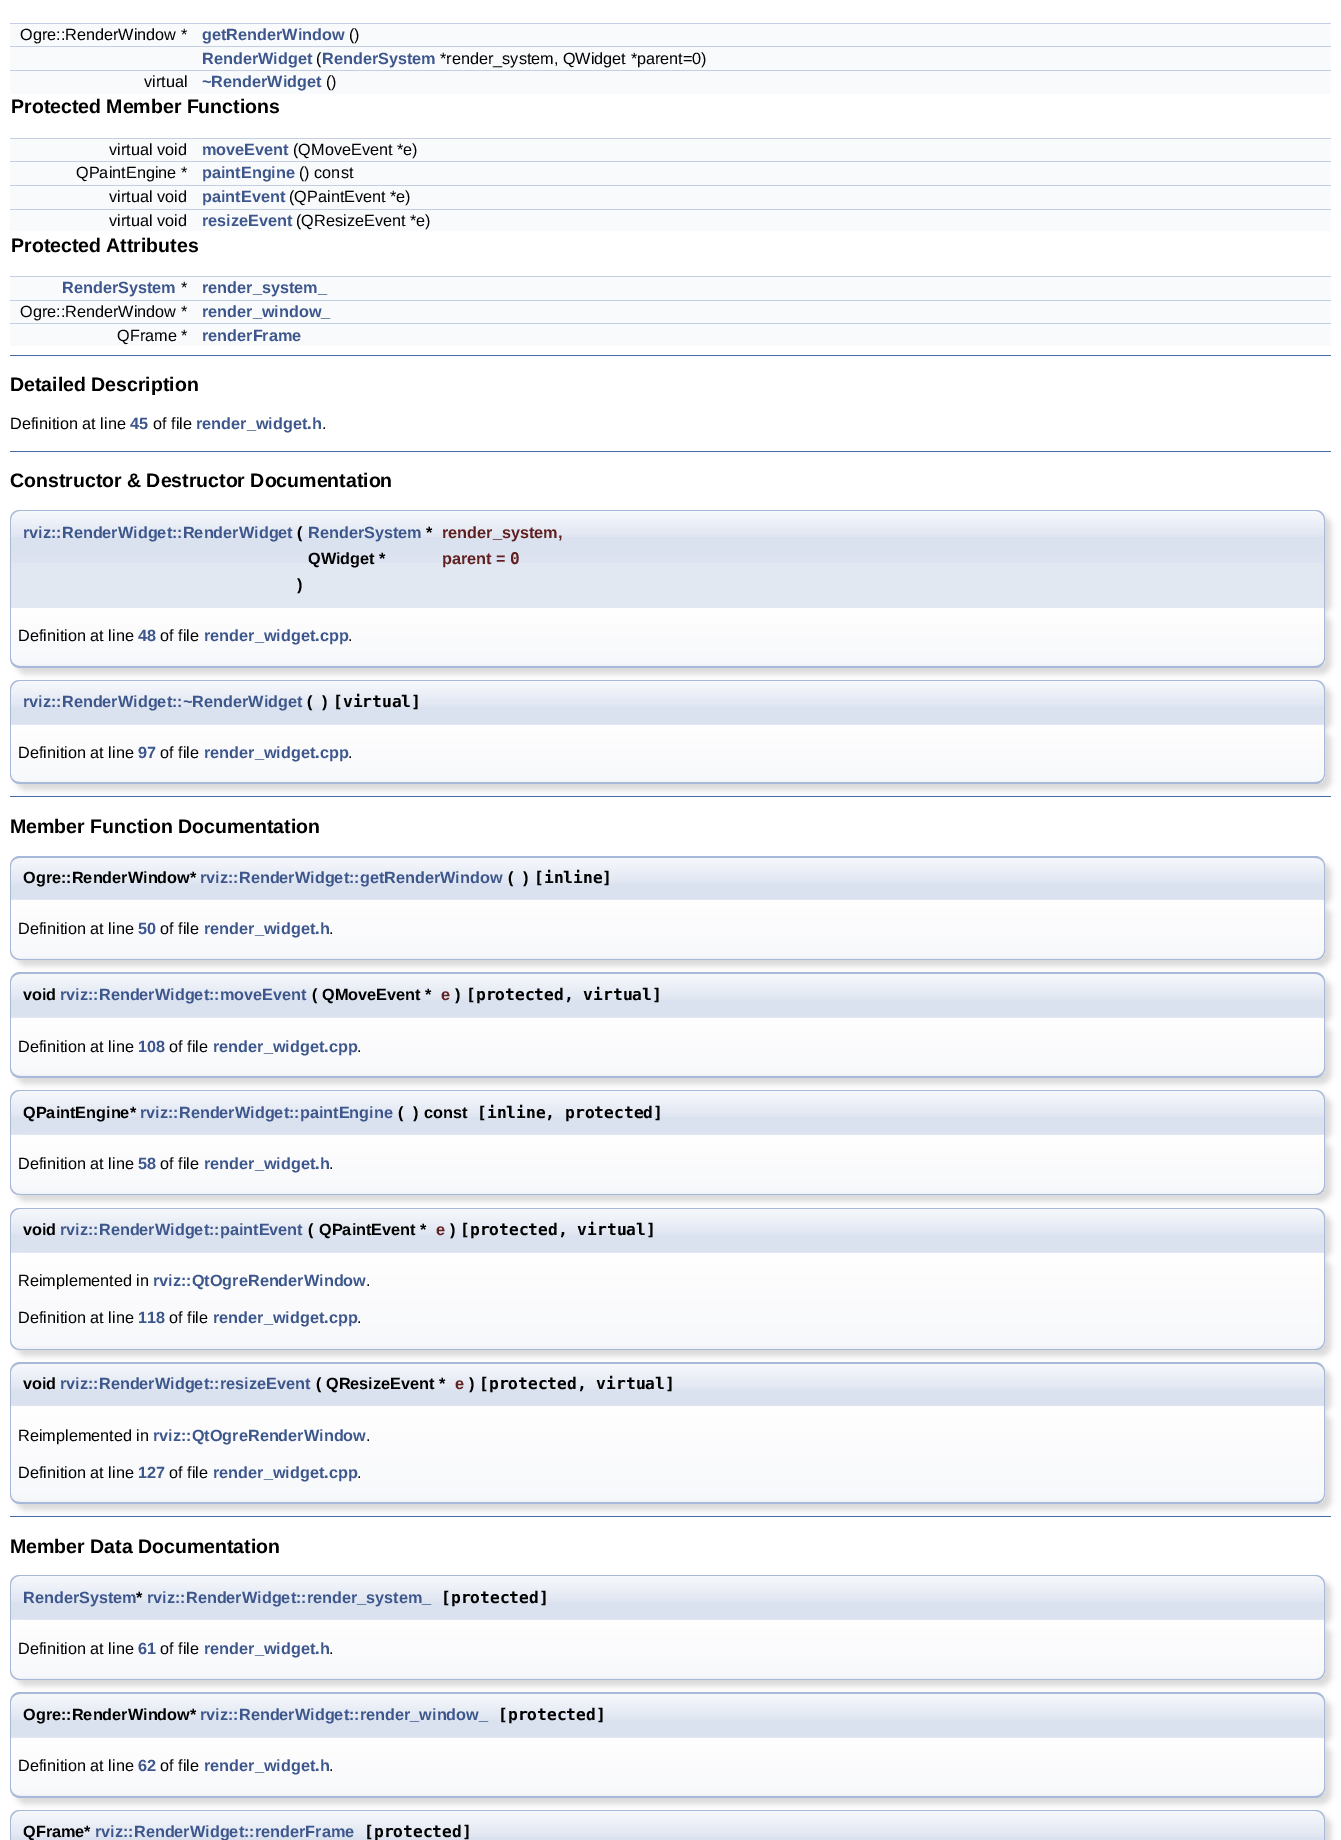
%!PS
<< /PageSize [1341 1840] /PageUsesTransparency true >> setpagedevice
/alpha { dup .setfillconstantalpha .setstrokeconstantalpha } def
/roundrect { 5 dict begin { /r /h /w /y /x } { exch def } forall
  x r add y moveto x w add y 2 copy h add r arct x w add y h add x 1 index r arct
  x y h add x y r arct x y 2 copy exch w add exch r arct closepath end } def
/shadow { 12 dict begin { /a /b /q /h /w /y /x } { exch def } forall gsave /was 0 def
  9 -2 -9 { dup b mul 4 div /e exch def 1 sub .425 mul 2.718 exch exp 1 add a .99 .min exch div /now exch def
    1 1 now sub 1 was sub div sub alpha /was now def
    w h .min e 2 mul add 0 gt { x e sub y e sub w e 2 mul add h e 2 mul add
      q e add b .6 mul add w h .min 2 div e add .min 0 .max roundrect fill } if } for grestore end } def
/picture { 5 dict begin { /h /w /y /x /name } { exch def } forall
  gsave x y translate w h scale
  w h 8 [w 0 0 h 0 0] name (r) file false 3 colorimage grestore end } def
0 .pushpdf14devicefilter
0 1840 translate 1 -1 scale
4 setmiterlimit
1 setgray
0 0 1341 1840 rectfill
0.976 0.98 0.988 setrgbcolor
10 24 1321 22 rectfill
0.769 0.812 0.898 setrgbcolor
10 23 1321 1 rectfill
/LiberationSans-Regular [16.25 0 0 -16.25 0 0] selectfont
0 setgray
20 40 moveto (Ogre::RenderWindow *) show
/LiberationSans-Bold [16.25 0 0 -16.25 0 0] selectfont
0.239 0.341 0.549 setrgbcolor
202 40 moveto (getRenderWindow) show
/LiberationSans-Regular [16.25 0 0 -16.25 0 0] selectfont
0 setgray
349 40 moveto (\(\)) show
0.976 0.98 0.988 setrgbcolor
10 47 1321 23 rectfill
0.769 0.812 0.898 setrgbcolor
10 46 1321 1 rectfill
/LiberationSans-Bold [16.25 0 0 -16.25 0 0] selectfont
0.239 0.341 0.549 setrgbcolor
202 64 moveto (RenderWidget) show
/LiberationSans-Regular [16.25 0 0 -16.25 0 0] selectfont
0 setgray
316 64 moveto (\() show
/LiberationSans-Bold [16.25 0 0 -16.25 0 0] selectfont
0.239 0.341 0.549 setrgbcolor
322 64 moveto (RenderSystem) show
/LiberationSans-Regular [16.25 0 0 -16.25 0 0] selectfont
0 setgray
440 64 moveto (*render_system, QWidget *parent=0\)) show
0.976 0.98 0.988 setrgbcolor
10 71 1321 23 rectfill
0.769 0.812 0.898 setrgbcolor
10 70 1321 1 rectfill
0 setgray
144 87 moveto (virtual) show
/LiberationSans-Bold [16.25 0 0 -16.25 0 0] selectfont
0.239 0.341 0.549 setrgbcolor
202 87 moveto (~RenderWidget) show
/LiberationSans-Regular [16.25 0 0 -16.25 0 0] selectfont
0 setgray
326 87 moveto (\(\)) show
/LiberationSans-Bold [19.5 0 0 -19.5 0 0] selectfont
11 113 moveto (Protected Member Functions) show
0.976 0.98 0.988 setrgbcolor
10 139 1321 22 rectfill
0.769 0.812 0.898 setrgbcolor
10 138 1321 1 rectfill
/LiberationSans-Regular [16.25 0 0 -16.25 0 0] selectfont
0 setgray
109 155 moveto (virtual void) show
/LiberationSans-Bold [16.25 0 0 -16.25 0 0] selectfont
0.239 0.341 0.549 setrgbcolor
202 155 moveto (moveEvent) show
/LiberationSans-Regular [16.25 0 0 -16.25 0 0] selectfont
0 setgray
293 155 moveto (\(QMoveEvent *e\)) show
0.976 0.98 0.988 setrgbcolor
10 162 1321 23 rectfill
0.769 0.812 0.898 setrgbcolor
10 161 1321 1 rectfill
0 setgray
76 178 moveto (QPaintEngine *) show
/LiberationSans-Bold [16.25 0 0 -16.25 0 0] selectfont
0.239 0.341 0.549 setrgbcolor
202 178 moveto (paintEngine) show
/LiberationSans-Regular [16.25 0 0 -16.25 0 0] selectfont
0 setgray
299 178 moveto (\(\) const) show
0.976 0.98 0.988 setrgbcolor
10 186 1321 23 rectfill
0.769 0.812 0.898 setrgbcolor
10 185 1321 1 rectfill
0 setgray
109 202 moveto (virtual void) show
/LiberationSans-Bold [16.25 0 0 -16.25 0 0] selectfont
0.239 0.341 0.549 setrgbcolor
202 202 moveto (paintEvent) show
/LiberationSans-Regular [16.25 0 0 -16.25 0 0] selectfont
0 setgray
289 202 moveto (\(QPaintEvent *e\)) show
0.976 0.98 0.988 setrgbcolor
10 210 1321 21 rectfill
0.769 0.812 0.898 setrgbcolor
10 209 1321 1 rectfill
0 setgray
109 226 moveto (virtual void) show
/LiberationSans-Bold [16.25 0 0 -16.25 0 0] selectfont
0.239 0.341 0.549 setrgbcolor
202 226 moveto (resizeEvent) show
/LiberationSans-Regular [16.25 0 0 -16.25 0 0] selectfont
0 setgray
296 226 moveto (\(QResizeEvent *e\)) show
/LiberationSans-Bold [19.5 0 0 -19.5 0 0] selectfont
11 252 moveto (Protected Attributes) show
0.976 0.98 0.988 setrgbcolor
10 277 1321 23 rectfill
0.769 0.812 0.898 setrgbcolor
10 276 1321 1 rectfill
/LiberationSans-Bold [16.25 0 0 -16.25 0 0] selectfont
0.239 0.341 0.549 setrgbcolor
62 293 moveto (RenderSystem) show
/LiberationSans-Regular [16.25 0 0 -16.25 0 0] selectfont
0 setgray
181 293 moveto (*) show
/LiberationSans-Bold [16.25 0 0 -16.25 0 0] selectfont
0.239 0.341 0.549 setrgbcolor
202 293 moveto (render_system_) show
0.976 0.98 0.988 setrgbcolor
10 301 1321 22 rectfill
0.769 0.812 0.898 setrgbcolor
10 300 1321 1 rectfill
/LiberationSans-Regular [16.25 0 0 -16.25 0 0] selectfont
0 setgray
20 317 moveto (Ogre::RenderWindow *) show
/LiberationSans-Bold [16.25 0 0 -16.25 0 0] selectfont
0.239 0.341 0.549 setrgbcolor
202 317 moveto (render_window_) show
0.976 0.98 0.988 setrgbcolor
10 324 1321 22 rectfill
0.769 0.812 0.898 setrgbcolor
10 323 1321 1 rectfill
/LiberationSans-Regular [16.25 0 0 -16.25 0 0] selectfont
0 setgray
117 341 moveto (QFrame *) show
/LiberationSans-Bold [16.25 0 0 -16.25 0 0] selectfont
0.239 0.341 0.549 setrgbcolor
202 341 moveto (renderFrame) show
0.29 0.416 0.667 setrgbcolor
10 355 1321 1 rectfill
/LiberationSans-Bold [19.5 0 0 -19.5 0 0] selectfont
0 setgray
10 391 moveto (Detailed Description) show
/LiberationSans-Regular [16.25 0 0 -16.25 0 0] selectfont
10 429 moveto (Definition at line) show
/LiberationSans-Bold [16.25 0 0 -16.25 0 0] selectfont
0.239 0.341 0.549 setrgbcolor
130 429 moveto (45) show
/LiberationSans-Regular [16.25 0 0 -16.25 0 0] selectfont
0 setgray
153 429 moveto (of file) show
/LiberationSans-Bold [16.25 0 0 -16.25 0 0] selectfont
0.239 0.341 0.549 setrgbcolor
196 429 moveto (render_widget.h) show
/LiberationSans-Regular [16.25 0 0 -16.25 0 0] selectfont
0 setgray
322 429 moveto (.) show
0.29 0.416 0.667 setrgbcolor
10 451 1321 1 rectfill
/LiberationSans-Bold [19.5 0 0 -19.5 0 0] selectfont
0 setgray
10 487 moveto (Constructor & Destructor Documentation) show
16 516 1315 98 10 3 0.15 shadow
0.886 0.91 0.949 setrgbcolor
newpath 20 510 moveto 1315 510 lineto 1320.5 510 1325 514.5 1325 520 curveto 1325 608 lineto 10 608 lineto 10 520 lineto 10 514.5 14.5 510 20 510 curveto closepath fill
(img1.rgb) 10 511 1315 52 picture
0.659 0.722 0.851 setrgbcolor
newpath 20 510 moveto 1315 510 lineto 1321 510 1325 514 1325 520 curveto 1325 608 lineto 10 608 lineto 10 520 lineto 10 514 14 510 20 510 curveto closepath 20 511 moveto 1315 511 lineto 1320 511 1324 515 1324 520 curveto 1324 608 lineto 11 608 lineto 11 520 lineto 11 515 15 511 20 511 curveto closepath eofill
/LiberationSans-Bold [16.25 0 0 -16.25 0 0] selectfont
0.239 0.341 0.549 setrgbcolor
23 538 moveto (rviz::RenderWidget::RenderWidget) show
0 setgray
297 538 moveto (\() show
0.239 0.341 0.549 setrgbcolor
308 538 moveto (RenderSystem) show
0 setgray
426 538 moveto (*) show
0.376 0.125 0.125 setrgbcolor
442 538 moveto (render_system,) show
0 setgray
308 564 moveto (QWidget *) show
0.376 0.125 0.125 setrgbcolor
442 564 moveto (parent =) show
/DejaVuSansMono-Bold [16.25 0 0 -16.25 0 0] selectfont
510 564 moveto (0) show
/LiberationSans-Bold [16.25 0 0 -16.25 0 0] selectfont
0 setgray
297 590 moveto (\)) show
16 614 1315 60 10 3 0.15 shadow
gsave
newpath 10 608 moveto 1325 608 lineto 1325 658 lineto 1325 663.5 1320.5 668 1315 668 curveto 20 668 lineto 14.5 668 10 663.5 10 658 curveto closepath clip newpath
gsave newpath 10 608 moveto 1325 608 lineto 1325 666 lineto 10 666 lineto closepath clip newpath
<< /ShadingType 2 /ColorSpace /DeviceRGB /Coords [668 608 668 666] /Extend [true true] /Function << /FunctionType 3 /Domain [0 1] /Functions [<< /FunctionType 2 /Domain [0 1] /C0 [1 1 1] /C1 [0.969 0.973 0.984] /N 1 >> << /FunctionType 2 /Domain [0 1] /C0 [0.969 0.973 0.984] /C1 [0.933 0.945 0.969] /N 1 >>] /Bounds [0.95] /Encode [0 1 0 1] >> >> shfill grestore
grestore
0.659 0.722 0.851 setrgbcolor
newpath 10 608 moveto 1325 608 lineto 1325 658 lineto 1325 663 1321 668 1315 668 curveto 20 668 lineto 14 668 10 663 10 658 curveto closepath 11 608 moveto 1324 608 lineto 1324 658 lineto 1324 662 1320 666 1315 666 curveto 20 666 lineto 15 666 11 662 11 658 curveto closepath eofill
/LiberationSans-Regular [16.25 0 0 -16.25 0 0] selectfont
0 setgray
18 641 moveto (Definition at line) show
/LiberationSans-Bold [16.25 0 0 -16.25 0 0] selectfont
0.239 0.341 0.549 setrgbcolor
138 641 moveto (48) show
/LiberationSans-Regular [16.25 0 0 -16.25 0 0] selectfont
0 setgray
160 641 moveto (of file) show
/LiberationSans-Bold [16.25 0 0 -16.25 0 0] selectfont
0.239 0.341 0.549 setrgbcolor
204 641 moveto (render_widget.cpp) show
/LiberationSans-Regular [16.25 0 0 -16.25 0 0] selectfont
0 setgray
348 641 moveto (.) show
16 686 1315 45 10 3 0.15 shadow
0.886 0.91 0.949 setrgbcolor
newpath 20 680 moveto 1315 680 lineto 1320.5 680 1325 684.5 1325 690 curveto 1325 725 lineto 10 725 lineto 10 690 lineto 10 684.5 14.5 680 20 680 curveto closepath fill
(img2.rgb) 10 681 1315 43 picture
0.659 0.722 0.851 setrgbcolor
newpath 20 680 moveto 1315 680 lineto 1321 680 1325 684 1325 690 curveto 1325 725 lineto 10 725 lineto 10 690 lineto 10 684 14 680 20 680 curveto closepath 20 681 moveto 1315 681 lineto 1320 681 1324 685 1324 690 curveto 1324 725 lineto 11 725 lineto 11 690 lineto 11 685 15 681 20 681 curveto closepath eofill
/LiberationSans-Bold [16.25 0 0 -16.25 0 0] selectfont
0.239 0.341 0.549 setrgbcolor
23 707 moveto (rviz::RenderWidget::~RenderWidget) show
0 setgray
307 707 moveto (\() show
322 707 moveto (\)) show
/DejaVuSansMono-Bold [16.25 0 0 -16.25 0 0] selectfont
333 707 moveto ([virtual]) show
16 731 1315 59 10 3 0.15 shadow
gsave
newpath 10 725 moveto 1325 725 lineto 1325 774 lineto 1325 779.5 1320.5 784 1315 784 curveto 20 784 lineto 14.5 784 10 779.5 10 774 curveto closepath clip newpath
gsave newpath 10 725 moveto 1325 725 lineto 1325 783 lineto 10 783 lineto closepath clip newpath
<< /ShadingType 2 /ColorSpace /DeviceRGB /Coords [668 725 668 783] /Extend [true true] /Function << /FunctionType 3 /Domain [0 1] /Functions [<< /FunctionType 2 /Domain [0 1] /C0 [1 1 1] /C1 [0.969 0.973 0.984] /N 1 >> << /FunctionType 2 /Domain [0 1] /C0 [0.969 0.973 0.984] /C1 [0.933 0.945 0.969] /N 1 >>] /Bounds [0.95] /Encode [0 1 0 1] >> >> shfill grestore
grestore
0.659 0.722 0.851 setrgbcolor
newpath 10 725 moveto 1325 725 lineto 1325 774 lineto 1325 779 1321 784 1315 784 curveto 20 784 lineto 14 784 10 779 10 774 curveto closepath 11 725 moveto 1324 725 lineto 1324 774 lineto 1324 779 1320 782 1315 782 curveto 20 782 lineto 15 782 11 779 11 774 curveto closepath eofill
/LiberationSans-Regular [16.25 0 0 -16.25 0 0] selectfont
0 setgray
18 758 moveto (Definition at line) show
/LiberationSans-Bold [16.25 0 0 -16.25 0 0] selectfont
0.239 0.341 0.549 setrgbcolor
138 758 moveto (97) show
/LiberationSans-Regular [16.25 0 0 -16.25 0 0] selectfont
0 setgray
160 758 moveto (of file) show
/LiberationSans-Bold [16.25 0 0 -16.25 0 0] selectfont
0.239 0.341 0.549 setrgbcolor
204 758 moveto (render_widget.cpp) show
/LiberationSans-Regular [16.25 0 0 -16.25 0 0] selectfont
0 setgray
348 758 moveto (.) show
0.29 0.416 0.667 setrgbcolor
10 796 1321 1 rectfill
/LiberationSans-Bold [19.5 0 0 -19.5 0 0] selectfont
0 setgray
10 833 moveto (Member Function Documentation) show
16 863 1315 43 10 3 0.15 shadow
0.886 0.91 0.949 setrgbcolor
newpath 20 856 moveto 1315 856 lineto 1320.5 856 1325 860.5 1325 866 curveto 1325 900 lineto 10 900 lineto 10 866 lineto 10 860.5 14.5 856 20 856 curveto closepath fill
(img3.rgb) 10 857 1315 42 picture
0.659 0.722 0.851 setrgbcolor
newpath 20 856 moveto 1315 856 lineto 1321 856 1325 861 1325 866 curveto 1325 900 lineto 10 900 lineto 10 866 lineto 10 861 14 856 20 856 curveto closepath 20 858 moveto 1315 858 lineto 1320 858 1324 861 1324 866 curveto 1324 900 lineto 11 900 lineto 11 866 lineto 11 861 15 858 20 858 curveto closepath eofill
/LiberationSans-Bold [16.25 0 0 -16.25 0 0] selectfont
0 setgray
23 883 moveto (Ogre::RenderWindow*) show
0.239 0.341 0.549 setrgbcolor
200 883 moveto (rviz::RenderWidget::getRenderWindow) show
0 setgray
508 883 moveto (\() show
523 883 moveto (\)) show
/DejaVuSansMono-Bold [16.25 0 0 -16.25 0 0] selectfont
534 883 moveto ([inline]) show
16 906 1315 60 10 3 0.15 shadow
gsave
newpath 10 900 moveto 1325 900 lineto 1325 950 lineto 1325 955.5 1320.5 960 1315 960 curveto 20 960 lineto 14.5 960 10 955.5 10 950 curveto closepath clip newpath
gsave newpath 10 900 moveto 1325 900 lineto 1325 959 lineto 10 959 lineto closepath clip newpath
<< /ShadingType 2 /ColorSpace /DeviceRGB /Coords [668 900 668 959] /Extend [true true] /Function << /FunctionType 3 /Domain [0 1] /Functions [<< /FunctionType 2 /Domain [0 1] /C0 [1 1 1] /C1 [0.969 0.973 0.984] /N 1 >> << /FunctionType 2 /Domain [0 1] /C0 [0.969 0.973 0.984] /C1 [0.933 0.945 0.969] /N 1 >>] /Bounds [0.95] /Encode [0 1 0 1] >> >> shfill grestore
grestore
0.659 0.722 0.851 setrgbcolor
newpath 10 900 moveto 1325 900 lineto 1325 950 lineto 1325 956 1321 960 1315 960 curveto 20 960 lineto 14 960 10 956 10 950 curveto closepath 11 900 moveto 1324 900 lineto 1324 950 lineto 1324 955 1320 959 1315 959 curveto 20 959 lineto 15 959 11 955 11 950 curveto closepath eofill
/LiberationSans-Regular [16.25 0 0 -16.25 0 0] selectfont
0 setgray
18 934 moveto (Definition at line) show
/LiberationSans-Bold [16.25 0 0 -16.25 0 0] selectfont
0.239 0.341 0.549 setrgbcolor
138 934 moveto (50) show
/LiberationSans-Regular [16.25 0 0 -16.25 0 0] selectfont
0 setgray
160 934 moveto (of file) show
/LiberationSans-Bold [16.25 0 0 -16.25 0 0] selectfont
0.239 0.341 0.549 setrgbcolor
204 934 moveto (render_widget.h) show
/LiberationSans-Regular [16.25 0 0 -16.25 0 0] selectfont
0 setgray
329 934 moveto (.) show
16 979 1315 45 10 3 0.15 shadow
0.886 0.91 0.949 setrgbcolor
newpath 20 973 moveto 1315 973 lineto 1320.5 973 1325 977.5 1325 983 curveto 1325 1018 lineto 10 1018 lineto 10 983 lineto 10 977.5 14.5 973 20 973 curveto closepath fill
(img4.rgb) 10 973 1315 44 picture
0.659 0.722 0.851 setrgbcolor
newpath 20 972 moveto 1315 972 lineto 1321 972 1325 977 1325 982 curveto 1325 1018 lineto 10 1018 lineto 10 982 lineto 10 977 14 972 20 972 curveto closepath 20 974 moveto 1315 974 lineto 1320 974 1324 978 1324 982 curveto 1324 1018 lineto 11 1018 lineto 11 982 lineto 11 978 15 974 20 974 curveto closepath eofill
/LiberationSans-Bold [16.25 0 0 -16.25 0 0] selectfont
0 setgray
23 1000 moveto (void) show
0.239 0.341 0.549 setrgbcolor
60 1000 moveto (rviz::RenderWidget::moveEvent) show
0 setgray
312 1000 moveto (\() show
322 1000 moveto (QMoveEvent *) show
0.376 0.125 0.125 setrgbcolor
441 1000 moveto (e) show
0 setgray
455 1000 moveto (\)) show
/DejaVuSansMono-Bold [16.25 0 0 -16.25 0 0] selectfont
466 1000 moveto ([protected, virtual]) show
16 1024 1315 60 10 3 0.15 shadow
gsave
newpath 10 1018 moveto 1325 1018 lineto 1325 1068 lineto 1325 1073.5 1320.5 1078 1315 1078 curveto 20 1078 lineto 14.5 1078 10 1073.5 10 1068 curveto closepath clip newpath
gsave newpath 10 1018 moveto 1325 1018 lineto 1325 1076 lineto 10 1076 lineto closepath clip newpath
<< /ShadingType 2 /ColorSpace /DeviceRGB /Coords [668 1018 668 1076] /Extend [true true] /Function << /FunctionType 3 /Domain [0 1] /Functions [<< /FunctionType 2 /Domain [0 1] /C0 [1 1 1] /C1 [0.969 0.973 0.984] /N 1 >> << /FunctionType 2 /Domain [0 1] /C0 [0.969 0.973 0.984] /C1 [0.933 0.945 0.969] /N 1 >>] /Bounds [0.95] /Encode [0 1 0 1] >> >> shfill grestore
grestore
0.659 0.722 0.851 setrgbcolor
newpath 10 1018 moveto 1325 1018 lineto 1325 1068 lineto 1325 1073 1321 1078 1315 1078 curveto 20 1078 lineto 14 1078 10 1073 10 1068 curveto closepath 11 1018 moveto 1324 1018 lineto 1324 1068 lineto 1324 1072 1320 1076 1315 1076 curveto 20 1076 lineto 15 1076 11 1072 11 1068 curveto closepath eofill
/LiberationSans-Regular [16.25 0 0 -16.25 0 0] selectfont
0 setgray
18 1052 moveto (Definition at line) show
/LiberationSans-Bold [16.25 0 0 -16.25 0 0] selectfont
0.239 0.341 0.549 setrgbcolor
138 1052 moveto (108) show
/LiberationSans-Regular [16.25 0 0 -16.25 0 0] selectfont
0 setgray
169 1052 moveto (of file) show
/LiberationSans-Bold [16.25 0 0 -16.25 0 0] selectfont
0.239 0.341 0.549 setrgbcolor
213 1052 moveto (render_widget.cpp) show
/LiberationSans-Regular [16.25 0 0 -16.25 0 0] selectfont
0 setgray
357 1052 moveto (.) show
16 1096 1315 45 10 3 0.15 shadow
0.886 0.91 0.949 setrgbcolor
newpath 20 1090 moveto 1315 1090 lineto 1320.5 1090 1325 1094.5 1325 1100 curveto 1325 1135 lineto 10 1135 lineto 10 1100 lineto 10 1094.5 14.5 1090 20 1090 curveto closepath fill
(img2.rgb) 10 1091 1315 43 picture
0.659 0.722 0.851 setrgbcolor
newpath 20 1090 moveto 1315 1090 lineto 1321 1090 1325 1094 1325 1100 curveto 1325 1135 lineto 10 1135 lineto 10 1100 lineto 10 1094 14 1090 20 1090 curveto closepath 20 1091 moveto 1315 1091 lineto 1320 1091 1324 1095 1324 1100 curveto 1324 1135 lineto 11 1135 lineto 11 1100 lineto 11 1095 15 1091 20 1091 curveto closepath eofill
/LiberationSans-Bold [16.25 0 0 -16.25 0 0] selectfont
0 setgray
23 1118 moveto (QPaintEngine*) show
0.239 0.341 0.549 setrgbcolor
140 1118 moveto (rviz::RenderWidget::paintEngine) show
0 setgray
398 1118 moveto (\() show
413 1118 moveto (\)) show
424 1118 moveto (const) show
/DejaVuSansMono-Bold [16.25 0 0 -16.25 0 0] selectfont
477 1118 moveto ([inline, protected]) show
16 1141 1315 60 10 3 0.15 shadow
gsave
newpath 10 1135 moveto 1325 1135 lineto 1325 1185 lineto 1325 1190.5 1320.5 1195 1315 1195 curveto 20 1195 lineto 14.5 1195 10 1190.5 10 1185 curveto closepath clip newpath
gsave newpath 10 1135 moveto 1325 1135 lineto 1325 1194 lineto 10 1194 lineto closepath clip newpath
<< /ShadingType 2 /ColorSpace /DeviceRGB /Coords [668 1135 668 1194] /Extend [true true] /Function << /FunctionType 3 /Domain [0 1] /Functions [<< /FunctionType 2 /Domain [0 1] /C0 [1 1 1] /C1 [0.969 0.973 0.984] /N 1 >> << /FunctionType 2 /Domain [0 1] /C0 [0.969 0.973 0.984] /C1 [0.933 0.945 0.969] /N 1 >>] /Bounds [0.95] /Encode [0 1 0 1] >> >> shfill grestore
grestore
0.659 0.722 0.851 setrgbcolor
newpath 10 1135 moveto 1325 1135 lineto 1325 1185 lineto 1325 1191 1321 1195 1315 1195 curveto 20 1195 lineto 14 1195 10 1191 10 1185 curveto closepath 11 1135 moveto 1324 1135 lineto 1324 1185 lineto 1324 1190 1320 1194 1315 1194 curveto 20 1194 lineto 15 1194 11 1190 11 1185 curveto closepath eofill
/LiberationSans-Regular [16.25 0 0 -16.25 0 0] selectfont
0 setgray
18 1169 moveto (Definition at line) show
/LiberationSans-Bold [16.25 0 0 -16.25 0 0] selectfont
0.239 0.341 0.549 setrgbcolor
138 1169 moveto (58) show
/LiberationSans-Regular [16.25 0 0 -16.25 0 0] selectfont
0 setgray
160 1169 moveto (of file) show
/LiberationSans-Bold [16.25 0 0 -16.25 0 0] selectfont
0.239 0.341 0.549 setrgbcolor
204 1169 moveto (render_widget.h) show
/LiberationSans-Regular [16.25 0 0 -16.25 0 0] selectfont
0 setgray
329 1169 moveto (.) show
16 1214 1315 45 10 3 0.15 shadow
0.886 0.91 0.949 setrgbcolor
newpath 20 1208 moveto 1315 1208 lineto 1320.5 1208 1325 1212.5 1325 1218 curveto 1325 1253 lineto 10 1253 lineto 10 1218 lineto 10 1212.5 14.5 1208 20 1208 curveto closepath fill
(img4.rgb) 10 1208 1315 44 picture
0.659 0.722 0.851 setrgbcolor
newpath 20 1208 moveto 1315 1208 lineto 1321 1208 1325 1212 1325 1218 curveto 1325 1252 lineto 10 1252 lineto 10 1218 lineto 10 1212 14 1208 20 1208 curveto closepath 20 1209 moveto 1315 1209 lineto 1320 1209 1324 1213 1324 1218 curveto 1324 1252 lineto 11 1252 lineto 11 1218 lineto 11 1213 15 1209 20 1209 curveto closepath eofill
/LiberationSans-Bold [16.25 0 0 -16.25 0 0] selectfont
0 setgray
23 1235 moveto (void) show
0.239 0.341 0.549 setrgbcolor
60 1235 moveto (rviz::RenderWidget::paintEvent) show
0 setgray
308 1235 moveto (\() show
319 1235 moveto (QPaintEvent *) show
0.376 0.125 0.125 setrgbcolor
436 1235 moveto (e) show
0 setgray
450 1235 moveto (\)) show
/DejaVuSansMono-Bold [16.25 0 0 -16.25 0 0] selectfont
460 1235 moveto ([protected, virtual]) show
16 1259 1315 97 10 3 0.15 shadow
gsave
newpath 10 1253 moveto 1325 1253 lineto 1325 1340 lineto 1325 1345.5 1320.5 1350 1315 1350 curveto 20 1350 lineto 14.5 1350 10 1345.5 10 1340 curveto closepath clip newpath
gsave newpath 10 1253 moveto 1325 1253 lineto 1325 1349 lineto 10 1349 lineto closepath clip newpath
<< /ShadingType 2 /ColorSpace /DeviceRGB /Coords [668 1253 668 1349] /Extend [true true] /Function << /FunctionType 3 /Domain [0 1] /Functions [<< /FunctionType 2 /Domain [0 1] /C0 [1 1 1] /C1 [0.969 0.973 0.984] /N 1 >> << /FunctionType 2 /Domain [0 1] /C0 [0.969 0.973 0.984] /C1 [0.933 0.945 0.969] /N 1 >>] /Bounds [0.95] /Encode [0 1 0 1] >> >> shfill grestore
grestore
0.659 0.722 0.851 setrgbcolor
newpath 10 1252 moveto 1325 1252 lineto 1325 1340 lineto 1325 1346 1321 1350 1315 1350 curveto 20 1350 lineto 14 1350 10 1346 10 1340 curveto closepath 11 1252 moveto 1324 1252 lineto 1324 1340 lineto 1324 1345 1320 1349 1315 1349 curveto 20 1349 lineto 15 1349 11 1345 11 1340 curveto closepath eofill
/LiberationSans-Regular [16.25 0 0 -16.25 0 0] selectfont
0 setgray
18 1286 moveto (Reimplemented in) show
/LiberationSans-Bold [16.25 0 0 -16.25 0 0] selectfont
0.239 0.341 0.549 setrgbcolor
153 1286 moveto (rviz::QtOgreRenderWindow) show
/LiberationSans-Regular [16.25 0 0 -16.25 0 0] selectfont
0 setgray
366 1286 moveto (.) show
18 1323 moveto (Definition at line) show
/LiberationSans-Bold [16.25 0 0 -16.25 0 0] selectfont
0.239 0.341 0.549 setrgbcolor
138 1323 moveto (118) show
/LiberationSans-Regular [16.25 0 0 -16.25 0 0] selectfont
0 setgray
169 1323 moveto (of file) show
/LiberationSans-Bold [16.25 0 0 -16.25 0 0] selectfont
0.239 0.341 0.549 setrgbcolor
213 1323 moveto (render_widget.cpp) show
/LiberationSans-Regular [16.25 0 0 -16.25 0 0] selectfont
0 setgray
357 1323 moveto (.) show
16 1369 1315 44 10 3 0.15 shadow
(img5.rgb) 10 1363 1315 43 picture
0.659 0.722 0.851 setrgbcolor
newpath 20 1362 moveto 1315 1362 lineto 1321 1362 1325 1367 1325 1372 curveto 1325 1406 lineto 10 1406 lineto 10 1372 lineto 10 1367 14 1362 20 1362 curveto closepath 20 1364 moveto 1315 1364 lineto 1320 1364 1324 1368 1324 1372 curveto 1324 1406 lineto 11 1406 lineto 11 1372 lineto 11 1368 15 1364 20 1364 curveto closepath eofill
/LiberationSans-Bold [16.25 0 0 -16.25 0 0] selectfont
0 setgray
23 1389 moveto (void) show
0.239 0.341 0.549 setrgbcolor
60 1389 moveto (rviz::RenderWidget::resizeEvent) show
0 setgray
316 1389 moveto (\() show
326 1389 moveto (QResizeEvent *) show
0.376 0.125 0.125 setrgbcolor
455 1389 moveto (e) show
0 setgray
469 1389 moveto (\)) show
/DejaVuSansMono-Bold [16.25 0 0 -16.25 0 0] selectfont
479 1389 moveto ([protected, virtual]) show
16 1413 1315 97 10 3 0.15 shadow
gsave
newpath 10 1406 moveto 1325 1406 lineto 1325 1494 lineto 1325 1499.5 1320.5 1504 1315 1504 curveto 20 1504 lineto 14.5 1504 10 1499.5 10 1494 curveto closepath clip newpath
gsave newpath 10 1406 moveto 1325 1406 lineto 1325 1503 lineto 10 1503 lineto closepath clip newpath
<< /ShadingType 2 /ColorSpace /DeviceRGB /Coords [668 1406 668 1503] /Extend [true true] /Function << /FunctionType 3 /Domain [0 1] /Functions [<< /FunctionType 2 /Domain [0 1] /C0 [1 1 1] /C1 [0.969 0.973 0.984] /N 1 >> << /FunctionType 2 /Domain [0 1] /C0 [0.969 0.973 0.984] /C1 [0.933 0.945 0.969] /N 1 >>] /Bounds [0.95] /Encode [0 1 0 1] >> >> shfill grestore
grestore
0.659 0.722 0.851 setrgbcolor
newpath 10 1406 moveto 1325 1406 lineto 1325 1494 lineto 1325 1499 1321 1504 1315 1504 curveto 20 1504 lineto 14 1504 10 1499 10 1494 curveto closepath 11 1406 moveto 1324 1406 lineto 1324 1494 lineto 1324 1499 1320 1502 1315 1502 curveto 20 1502 lineto 15 1502 11 1499 11 1494 curveto closepath eofill
/LiberationSans-Regular [16.25 0 0 -16.25 0 0] selectfont
0 setgray
18 1441 moveto (Reimplemented in) show
/LiberationSans-Bold [16.25 0 0 -16.25 0 0] selectfont
0.239 0.341 0.549 setrgbcolor
153 1441 moveto (rviz::QtOgreRenderWindow) show
/LiberationSans-Regular [16.25 0 0 -16.25 0 0] selectfont
0 setgray
366 1441 moveto (.) show
18 1478 moveto (Definition at line) show
/LiberationSans-Bold [16.25 0 0 -16.25 0 0] selectfont
0.239 0.341 0.549 setrgbcolor
138 1478 moveto (127) show
/LiberationSans-Regular [16.25 0 0 -16.25 0 0] selectfont
0 setgray
169 1478 moveto (of file) show
/LiberationSans-Bold [16.25 0 0 -16.25 0 0] selectfont
0.239 0.341 0.549 setrgbcolor
213 1478 moveto (render_widget.cpp) show
/LiberationSans-Regular [16.25 0 0 -16.25 0 0] selectfont
0 setgray
357 1478 moveto (.) show
0.29 0.416 0.667 setrgbcolor
10 1516 1321 1 rectfill
/LiberationSans-Bold [19.5 0 0 -19.5 0 0] selectfont
0 setgray
10 1553 moveto (Member Data Documentation) show
16 1581 1315 45 10 3 0.15 shadow
0.886 0.91 0.949 setrgbcolor
newpath 20 1575 moveto 1315 1575 lineto 1320.5 1575 1325 1579.5 1325 1585 curveto 1325 1620 lineto 10 1620 lineto 10 1585 lineto 10 1579.5 14.5 1575 20 1575 curveto closepath fill
(img6.rgb) 10 1576 1315 43 picture
0.659 0.722 0.851 setrgbcolor
newpath 20 1575 moveto 1315 1575 lineto 1321 1575 1325 1579 1325 1585 curveto 1325 1620 lineto 10 1620 lineto 10 1585 lineto 10 1579 14 1575 20 1575 curveto closepath 20 1576 moveto 1315 1576 lineto 1320 1576 1324 1580 1324 1585 curveto 1324 1620 lineto 11 1620 lineto 11 1585 lineto 11 1580 15 1576 20 1576 curveto closepath eofill
/LiberationSans-Bold [16.25 0 0 -16.25 0 0] selectfont
0.239 0.341 0.549 setrgbcolor
23 1603 moveto (RenderSystem) show
0 setgray
136 1603 moveto (*) show
0.239 0.341 0.549 setrgbcolor
147 1603 moveto (rviz::RenderWidget::render_system_) show
/DejaVuSansMono-Bold [16.25 0 0 -16.25 0 0] selectfont
0 setgray
441 1603 moveto ([protected]) show
16 1626 1315 60 10 3 0.15 shadow
gsave
newpath 10 1620 moveto 1325 1620 lineto 1325 1670 lineto 1325 1675.5 1320.5 1680 1315 1680 curveto 20 1680 lineto 14.5 1680 10 1675.5 10 1670 curveto closepath clip newpath
gsave newpath 10 1620 moveto 1325 1620 lineto 1325 1679 lineto 10 1679 lineto closepath clip newpath
<< /ShadingType 2 /ColorSpace /DeviceRGB /Coords [668 1620 668 1679] /Extend [true true] /Function << /FunctionType 3 /Domain [0 1] /Functions [<< /FunctionType 2 /Domain [0 1] /C0 [1 1 1] /C1 [0.969 0.973 0.984] /N 1 >> << /FunctionType 2 /Domain [0 1] /C0 [0.969 0.973 0.984] /C1 [0.933 0.945 0.969] /N 1 >>] /Bounds [0.95] /Encode [0 1 0 1] >> >> shfill grestore
grestore
0.659 0.722 0.851 setrgbcolor
newpath 10 1620 moveto 1325 1620 lineto 1325 1670 lineto 1325 1676 1321 1680 1315 1680 curveto 20 1680 lineto 14 1680 10 1676 10 1670 curveto closepath 11 1620 moveto 1324 1620 lineto 1324 1670 lineto 1324 1675 1320 1679 1315 1679 curveto 20 1679 lineto 15 1679 11 1675 11 1670 curveto closepath eofill
/LiberationSans-Regular [16.25 0 0 -16.25 0 0] selectfont
0 setgray
18 1654 moveto (Definition at line) show
/LiberationSans-Bold [16.25 0 0 -16.25 0 0] selectfont
0.239 0.341 0.549 setrgbcolor
138 1654 moveto (61) show
/LiberationSans-Regular [16.25 0 0 -16.25 0 0] selectfont
0 setgray
160 1654 moveto (of file) show
/LiberationSans-Bold [16.25 0 0 -16.25 0 0] selectfont
0.239 0.341 0.549 setrgbcolor
204 1654 moveto (render_widget.h) show
/LiberationSans-Regular [16.25 0 0 -16.25 0 0] selectfont
0 setgray
329 1654 moveto (.) show
16 1699 1315 45 10 3 0.15 shadow
0.886 0.91 0.949 setrgbcolor
newpath 20 1693 moveto 1315 1693 lineto 1320.5 1693 1325 1697.5 1325 1703 curveto 1325 1738 lineto 10 1738 lineto 10 1703 lineto 10 1697.5 14.5 1693 20 1693 curveto closepath fill
(img4.rgb) 10 1693 1315 44 picture
0.659 0.722 0.851 setrgbcolor
newpath 20 1692 moveto 1315 1692 lineto 1321 1692 1325 1697 1325 1702 curveto 1325 1738 lineto 10 1738 lineto 10 1702 lineto 10 1697 14 1692 20 1692 curveto closepath 20 1694 moveto 1315 1694 lineto 1320 1694 1324 1698 1324 1702 curveto 1324 1738 lineto 11 1738 lineto 11 1702 lineto 11 1698 15 1694 20 1694 curveto closepath eofill
/LiberationSans-Bold [16.25 0 0 -16.25 0 0] selectfont
0 setgray
23 1720 moveto (Ogre::RenderWindow*) show
0.239 0.341 0.549 setrgbcolor
200 1720 moveto (rviz::RenderWidget::render_window_) show
/DejaVuSansMono-Bold [16.25 0 0 -16.25 0 0] selectfont
0 setgray
498 1720 moveto ([protected]) show
16 1744 1315 60 10 3 0.15 shadow
gsave
newpath 10 1738 moveto 1325 1738 lineto 1325 1788 lineto 1325 1793.5 1320.5 1798 1315 1798 curveto 20 1798 lineto 14.5 1798 10 1793.5 10 1788 curveto closepath clip newpath
gsave newpath 10 1738 moveto 1325 1738 lineto 1325 1796 lineto 10 1796 lineto closepath clip newpath
<< /ShadingType 2 /ColorSpace /DeviceRGB /Coords [668 1738 668 1796] /Extend [true true] /Function << /FunctionType 3 /Domain [0 1] /Functions [<< /FunctionType 2 /Domain [0 1] /C0 [1 1 1] /C1 [0.969 0.973 0.984] /N 1 >> << /FunctionType 2 /Domain [0 1] /C0 [0.969 0.973 0.984] /C1 [0.933 0.945 0.969] /N 1 >>] /Bounds [0.95] /Encode [0 1 0 1] >> >> shfill grestore
grestore
0.659 0.722 0.851 setrgbcolor
newpath 10 1738 moveto 1325 1738 lineto 1325 1788 lineto 1325 1793 1321 1798 1315 1798 curveto 20 1798 lineto 14 1798 10 1793 10 1788 curveto closepath 11 1738 moveto 1324 1738 lineto 1324 1788 lineto 1324 1792 1320 1796 1315 1796 curveto 20 1796 lineto 15 1796 11 1792 11 1788 curveto closepath eofill
/LiberationSans-Regular [16.25 0 0 -16.25 0 0] selectfont
0 setgray
18 1771 moveto (Definition at line) show
/LiberationSans-Bold [16.25 0 0 -16.25 0 0] selectfont
0.239 0.341 0.549 setrgbcolor
138 1771 moveto (62) show
/LiberationSans-Regular [16.25 0 0 -16.25 0 0] selectfont
0 setgray
160 1771 moveto (of file) show
/LiberationSans-Bold [16.25 0 0 -16.25 0 0] selectfont
0.239 0.341 0.549 setrgbcolor
204 1771 moveto (render_widget.h) show
/LiberationSans-Regular [16.25 0 0 -16.25 0 0] selectfont
0 setgray
329 1771 moveto (.) show
16 1816 1315 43 10 3 0.15 shadow
(img7.rgb) 10 1811 1315 29 picture
0.659 0.722 0.851 setrgbcolor
newpath 20 1810 moveto 1315 1810 lineto 1321 1810 1325 1814 1325 1820 curveto 1325 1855 lineto 10 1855 lineto 10 1820 lineto 10 1814 14 1810 20 1810 curveto closepath 20 1811 moveto 1315 1811 lineto 1320 1811 1324 1815 1324 1820 curveto 1324 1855 lineto 11 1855 lineto 11 1820 lineto 11 1815 15 1811 20 1811 curveto closepath eofill
/LiberationSans-Bold [16.25 0 0 -16.25 0 0] selectfont
0 setgray
23 1837 moveto (QFrame*) show
0.239 0.341 0.549 setrgbcolor
95 1837 moveto (rviz::RenderWidget::renderFrame) show
/DejaVuSansMono-Bold [16.25 0 0 -16.25 0 0] selectfont
0 setgray
364 1837 moveto ([protected]) show
.poppdf14devicefilter showpage
